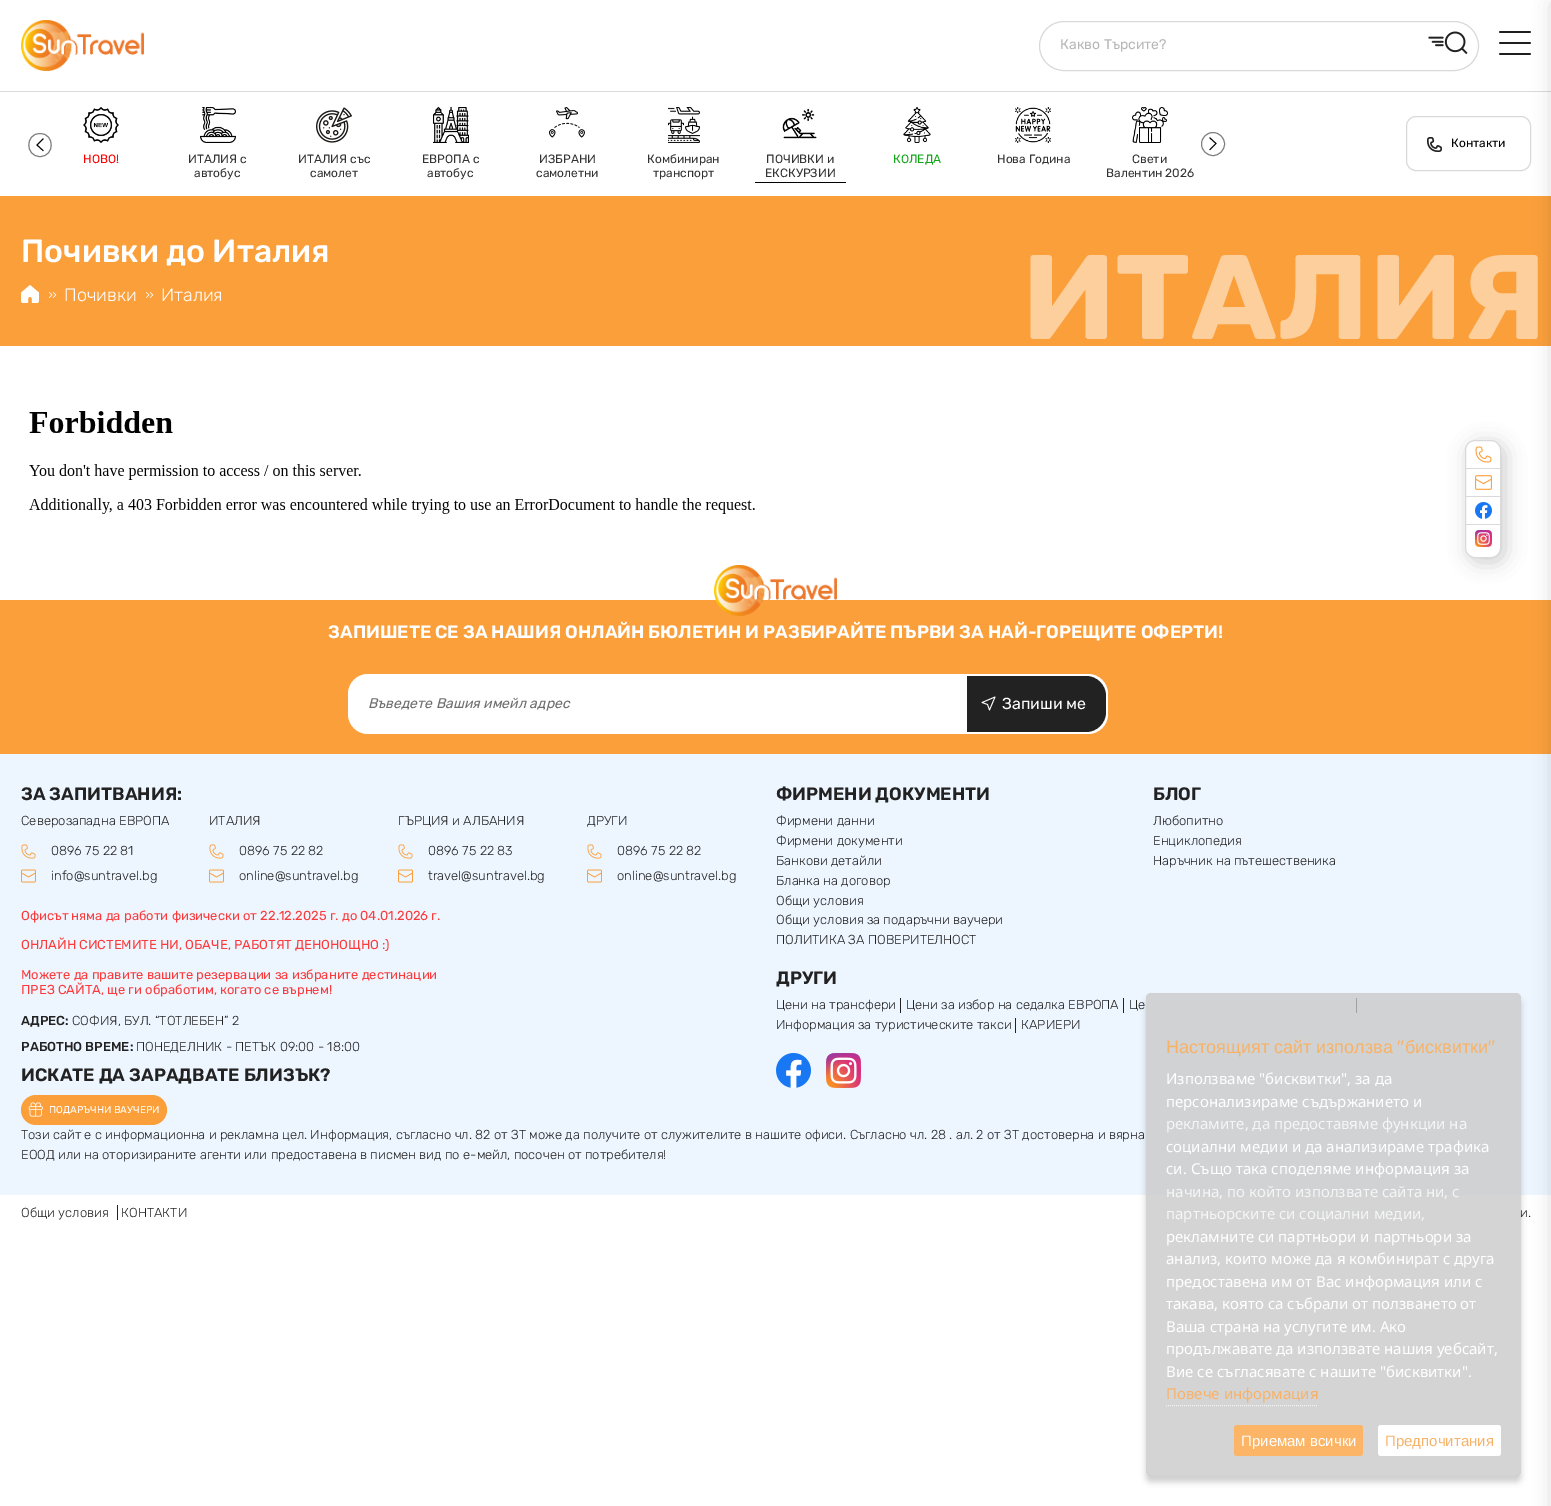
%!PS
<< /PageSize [1551 1506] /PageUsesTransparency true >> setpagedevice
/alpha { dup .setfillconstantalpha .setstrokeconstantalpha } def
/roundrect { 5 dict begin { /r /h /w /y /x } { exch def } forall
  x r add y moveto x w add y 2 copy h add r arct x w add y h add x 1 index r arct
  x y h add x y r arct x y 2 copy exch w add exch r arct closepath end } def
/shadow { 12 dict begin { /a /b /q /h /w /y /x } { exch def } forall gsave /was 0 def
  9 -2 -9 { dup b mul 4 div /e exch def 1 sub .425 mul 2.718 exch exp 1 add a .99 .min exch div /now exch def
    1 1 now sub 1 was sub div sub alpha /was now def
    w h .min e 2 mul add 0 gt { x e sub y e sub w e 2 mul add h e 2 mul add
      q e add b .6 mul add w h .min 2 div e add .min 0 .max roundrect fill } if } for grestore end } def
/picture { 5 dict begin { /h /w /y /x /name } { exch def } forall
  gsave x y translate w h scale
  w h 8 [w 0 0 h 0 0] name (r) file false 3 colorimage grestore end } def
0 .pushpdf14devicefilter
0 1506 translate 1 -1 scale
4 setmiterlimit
1 setgray
0 0 1551 1506 rectfill
0.851 setgray
0 91 1551 1 rectfill
(img1.rgb) 21 20 123 51 picture
1039.5 21.5 439 49 24.5 roundrect stroke
/Rubik-Regular [14 0 0 -14 0 0] selectfont
0.718 0.714 0.714 setrgbcolor
1060 49 moveto (Какво Търсите?) show
(img2.rgb) 1428 31 40 24 picture
0.122 setgray
1.8 setlinewidth
1 setlinecap
newpath 1530 54 moveto 1500 54 lineto 1530 43 moveto 1500 43 lineto 1530 32 moveto 1500 32 lineto stroke
0.851 setgray
1 setlinewidth
0 setlinecap
1406.5 116.5 124 54 9.5 roundrect stroke
0.984 0.624 0.231 setrgbcolor
0 196 1551 150 rectfill
0 600 1551 154 rectfill
0.929 0.961 1 setrgbcolor
0 754 1551 441 rectfill
0 setgray
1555 4 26 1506 0 10 0.2 shadow
0.9 setlinewidth
2 setlinecap
newpath 43 139 moveto 37 145 lineto 43 150.5 lineto stroke
0.502 setgray
1 setlinewidth
0 setlinecap
newpath 40 156.5 moveto 25 156.5 25 133.5 40 133.5 curveto 55 133.5 55 156.5 40 156.5 curveto closepath stroke
0 setgray
0.9 setlinewidth
2 setlinecap
newpath 1210 149.5 moveto 1216 143.5 lineto 1210 138 lineto stroke
0.502 setgray
1 setlinewidth
0 setlinecap
newpath 1213 144 11.5 0 360 arc closepath stroke
(img3.rgb) 1427 137 15 15 picture
/Rubik-Regular [12 0 0 -12 0 0] selectfont
0 setgray
1451 147 moveto (Контакти) show
(img4.rgb) 83 107 36 36 picture
1 0 0 setrgbcolor
83 163 moveto (НОВО!) show
(img5.rgb) 200 107 36 36 picture
0.2 setgray
188 163 moveto (ИТАЛИЯ с) show
194 177 moveto (автобус) show
(img6.rgb) 316 107 36 36 picture
298 163 moveto (ИТАЛИЯ със) show
310 177 moveto (самолет) show
(img7.rgb) 433 107 36 36 picture
422 163 moveto (ЕВРОПА с) show
427 177 moveto (автобус) show
(img8.rgb) 549 107 36 31 picture
539 163 moveto (ИЗБРАНИ) show
536 177 moveto (самолетни) show
(img9.rgb) 668 107 32 36 picture
647 163 moveto (Комбиниран) show
653 177 moveto (транспорт) show
(img10.rgb) 782 108 35 31 picture
766 163 moveto (ПОЧИВКИ и) show
765 177 moveto (ЕКСКУРЗИИ) show
0 setgray
755 182 91 1 rectfill
(img11.rgb) 903 107 28 36 picture
0.078 0.651 0.102 setrgbcolor
893 163 moveto (КОЛЕДА) show
(img12.rgb) 1015 107 36 36 picture
0.2 setgray
997 163 moveto (Нова Година) show
(img13.rgb) 1132 107 36 36 picture
1132 163 moveto (Свети) show
1106 177 moveto (Валентин 2026) show
0 setgray
1469 444 36 118 10 10 0.2 shadow
1 setgray
1465.5 440.5 35 117 9.5 roundrect gsave fill grestore
0.851 setgray
stroke
1466 468 34 1 rectfill
(img14.rgb) 1475 446 17 17 picture
1466 496 34 1 rectfill
(img15.rgb) 1475 475 17 15 picture
1466 524 34 1 rectfill
(img16.rgb) 1475 502 17 17 picture
(img17.rgb) 1475 530 17 17 picture
/Rubik-Medium [32 0 0 -32 0 0] selectfont
1 setgray
21 262 moveto (Почивки до Италия) show
/Rubik-Bold [120 0 0 -120 0 0] selectfont
0.992 0.812 0.616 setrgbcolor
1022 339 moveto (ИТАЛИЯ) show
(img18.rgb) 21 285 18 18 picture
(img19.rgb) 49 292 8 6 picture
/Rubik-Light [18 0 0 -18 0 0] selectfont
1 setgray
64 301 moveto (Почивки) show
(img19.rgb) 146 292 8 6 picture
161 301 moveto (Италия) show
(img20.rgb) 29 411 726 103 picture
(img21.rgb) 714 565 123 51 picture
/Rubik-SemiBold [18 0 0 -18 0 0] selectfont
328 638 moveto (ЗАПИШЕТЕ СЕ ЗА НАШИЯ ОНЛАЙН БЮЛЕТИН И РАЗБИРАЙТЕ ПЪРВИ ЗА НАЙ-ГОРЕЩИТЕ ОФЕРТИ!) show
348 674 760 60 20 roundrect fill
/Rubik-Italic [14 0 0 -14 0 0] selectfont
0.431 0.424 0.424 setrgbcolor
368 708 moveto (Въведете Вашия имейл адрес) show
0.133 setgray
newpath 967 676 moveto 1086 676 lineto 1097 676 1106 685 1106 696 curveto 1106 712 lineto 1106 723 1097 732 1086 732 curveto 967 732 lineto closepath fill
1 setgray
0.8 setlinewidth
1 setlinejoin
newpath 995 697 moveto 989.5 710 lineto 987.5 704.5 lineto 982 702.5 lineto closepath stroke
/Rubik-Regular [16 0 0 -16 0 0] selectfont
1002 709 moveto (Запиши ме) show
/Rubik-SemiBold [18 0 0 -18 0 0] selectfont
0.133 setgray
21 800 moveto (ЗА ЗАПИТВАНИЯ:) show
/Rubik-Light [13 0 0 -13 0 0] selectfont
21 825 moveto (Северозападна ЕВРОПА) show
(img22.rgb) 21 844 15 15 picture
51 855 moveto (0896 75 22 81) show
(img23.rgb) 21 869 15 14 picture
51 880 moveto (info@suntravel.bg) show
209 825 moveto (ИТАЛИЯ) show
(img22.rgb) 209 844 15 15 picture
239 855 moveto (0896 75 22 82) show
(img23.rgb) 209 869 15 14 picture
239 880 moveto (online@suntravel.bg) show
398 825 moveto (ГЪРЦИЯ и АЛБАНИЯ) show
(img22.rgb) 398 844 15 15 picture
428 855 moveto (0896 75 22 83) show
(img23.rgb) 398 869 15 14 picture
428 880 moveto (travel@suntravel.bg) show
587 825 moveto (ДРУГИ) show
(img22.rgb) 587 844 15 15 picture
617 855 moveto (0896 75 22 82) show
(img23.rgb) 587 869 15 14 picture
617 880 moveto (online@suntravel.bg) show
/Rubik-Regular [13 0 0 -13 0 0] selectfont
0.984 0.231 0.231 setrgbcolor
21 920 moveto (Офисът няма да работи физически от 22.12.2025 г. до 04.01.2026 г.) show
21 949 moveto (ОНЛАЙН СИСТЕМИТЕ НИ, ОБАЧЕ, РАБОТЯТ ДЕНОНОЩНО :\)) show
21 979 moveto (Можете да правите вашите резервации за избраните дестинации) show
21 994 moveto (ПРЕЗ САЙТА, ще ги обработим, когато се върнем!) show
/Rubik-Medium [13 0 0 -13 0 0] selectfont
0.133 setgray
21 1025 moveto (АДРЕС:) show
/Rubik-Light [13 0 0 -13 0 0] selectfont
72 1025 moveto (СОФИЯ, БУЛ. “ТОТЛЕБЕН” 2) show
/Rubik-Medium [13 0 0 -13 0 0] selectfont
21 1051 moveto (РАБОТНО ВРЕМЕ:) show
/Rubik-Light [13 0 0 -13 0 0] selectfont
136 1051 moveto (ПОНЕДЕЛНИК - ПЕТЪК 09:00 - 18:00) show
/Rubik-SemiBold [18 0 0 -18 0 0] selectfont
21 1081 moveto (ИСКАТЕ ДА ЗАРАДВАТЕ БЛИЗЪК?) show
0.984 0.624 0.231 setrgbcolor
21 1095 146 30 15 roundrect fill
(img24.rgb) 28 1102 15 15 picture
/Rubik-Regular [10 0 0 -10 0 0] selectfont
1 setgray
49 1113 moveto (ПОДАРЪЧНИ ВАУЧЕРИ) show
/Rubik-SemiBold [18 0 0 -18 0 0] selectfont
0.133 setgray
776 800 moveto (ФИРМЕНИ ДОКУМЕНТИ) show
/Rubik-Light [13 0 0 -13 0 0] selectfont
776 825 moveto (Фирмени данни) show
776 845 moveto (Фирмени документи) show
776 865 moveto (Банкови детайли) show
776 885 moveto (Бланка на договор) show
776 905 moveto (Общи условия) show
776 924 moveto (Общи условия за подаръчни ваучери) show
776 944 moveto (ПОЛИТИКА ЗА ПОВЕРИТЕЛНОСТ) show
/Rubik-SemiBold [18 0 0 -18 0 0] selectfont
1153 800 moveto (БЛОГ) show
/Rubik-Light [13 0 0 -13 0 0] selectfont
1153 825 moveto (Любопитно) show
1153 845 moveto (Енциклопедия) show
1153 865 moveto (Наръчник на пътешественика) show
/Rubik-SemiBold [18 0 0 -18 0 0] selectfont
776 984 moveto (ДРУГИ) show
/Rubik-Light [13 0 0 -13 0 0] selectfont
776 1009 moveto (Цени на трансфери) show
900 998 1 15 rectfill
906 1009 moveto (Цени за избор на седалка ЕВРОПА) show
1123 998 1 15 rectfill
1129 1009 moveto (Це) show
1356 998 1 15 rectfill
776 1029 moveto (Информация за туристическите такси) show
1015 1018 1 15 rectfill
1021 1029 moveto (КАРИЕРИ) show
(img25.rgb) 776 1053 35 35 picture
(img26.rgb) 826 1053 35 35 picture
21 1139 moveto (Този сайт е с информационна и рекламна цел. Информация, съгласно чл. 82 от ЗТ може да получите от служителите в нашите офиси. Съгласно чл. 28 . ал. 2 от ЗТ достоверна и вярна) show
21 1159 moveto (ЕООД или на оторизираните агенти или предоставена в писмен вид по е-мейл, посочен от потребителя!) show
21 1217 moveto (Общи условия) show
117 1205 1 15 rectfill
121 1217 moveto (КОНТАКТИ) show
1520 1217 moveto (и.) show
gsave
newpath 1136 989 moveto 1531 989 lineto 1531 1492 lineto 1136 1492 lineto closepath 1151 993 moveto 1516 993 lineto 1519 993 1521 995 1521 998 curveto 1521 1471 lineto 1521 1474 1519 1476 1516 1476 curveto 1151 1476 lineto 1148 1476 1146 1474 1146 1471 curveto 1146 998 lineto 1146 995 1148 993 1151 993 curveto closepath eoclip newpath
0 setgray
1146 999 375 483 5 3 0.19 shadow
grestore
0.77 alpha
0.78 setgray
1146 993 375 483 5 roundrect fill
/LiberationSans-Regular [18 0 0 -18 0 0] selectfont
1 alpha
0.973 0.698 0.404 setrgbcolor
1166 1053 moveto (Настоящият сайт използва) show
/Quicksand-Medium [18 0 0 -18 0 0] selectfont
1397 1053 moveto (") show
/LiberationSans-Regular [18 0 0 -18 0 0] selectfont
1405 1053 moveto (бисквитки) show
/Quicksand-Medium [18 0 0 -18 0 0] selectfont
1488 1053 moveto (") show
/NotoSans-Regular [15 0 0 -15 0 0] selectfont
1 setgray
1166 1084 moveto (Използваме "бисквитки", за да) show
1166 1107 moveto (персонализираме съдържанието и) show
0.957 0.961 0.961 setrgbcolor
1166 1129 moveto (рекламите, да предоставяме функции на) show
1 setgray
1166 1152 moveto (социални медии и да анализираме трафика) show
1166 1174 moveto (си. Също така споделяме информация за) show
0.957 0.961 0.961 setrgbcolor
1166 1197 moveto (начина, по който използвате сайта ни, с) show
1166 1219 moveto (партньорските си социални медии,) show
1 setgray
1166 1242 moveto (рекламните си партньори и партньори за) show
1166 1264 moveto (анализ, които може да я комбинират с друга) show
1166 1287 moveto (предоставена им от Вас информация или с) show
1166 1309 moveto (такава, която са събрали от ползването от) show
1166 1332 moveto (Ваша страна на услугите им. Ако) show
1166 1354 moveto (продължавате да използвате нашия уебсайт,) show
1166 1377 moveto (Вие се съгласявате с нашите "бисквитки".) show
0.973 0.698 0.404 setrgbcolor
1166 1399 moveto (Повече информация) show
0.957 setgray
1 setlinewidth
0 setlinejoin
[1 1] 0 setdash
newpath 1166 1405.5 moveto 1318 1405.5 lineto stroke
0.988 0.71 0.404 setrgbcolor
1234 1425 129 31 3 roundrect fill
/LiberationSans-Regular [15 0 0 -15 0 0] selectfont
1 setgray
1241 1446 moveto (Приемам всички) show
1378 1425 123 31 3 roundrect fill
0.973 0.698 0.404 setrgbcolor
1385 1446 moveto (Предпочитания) show
.poppdf14devicefilter showpage
